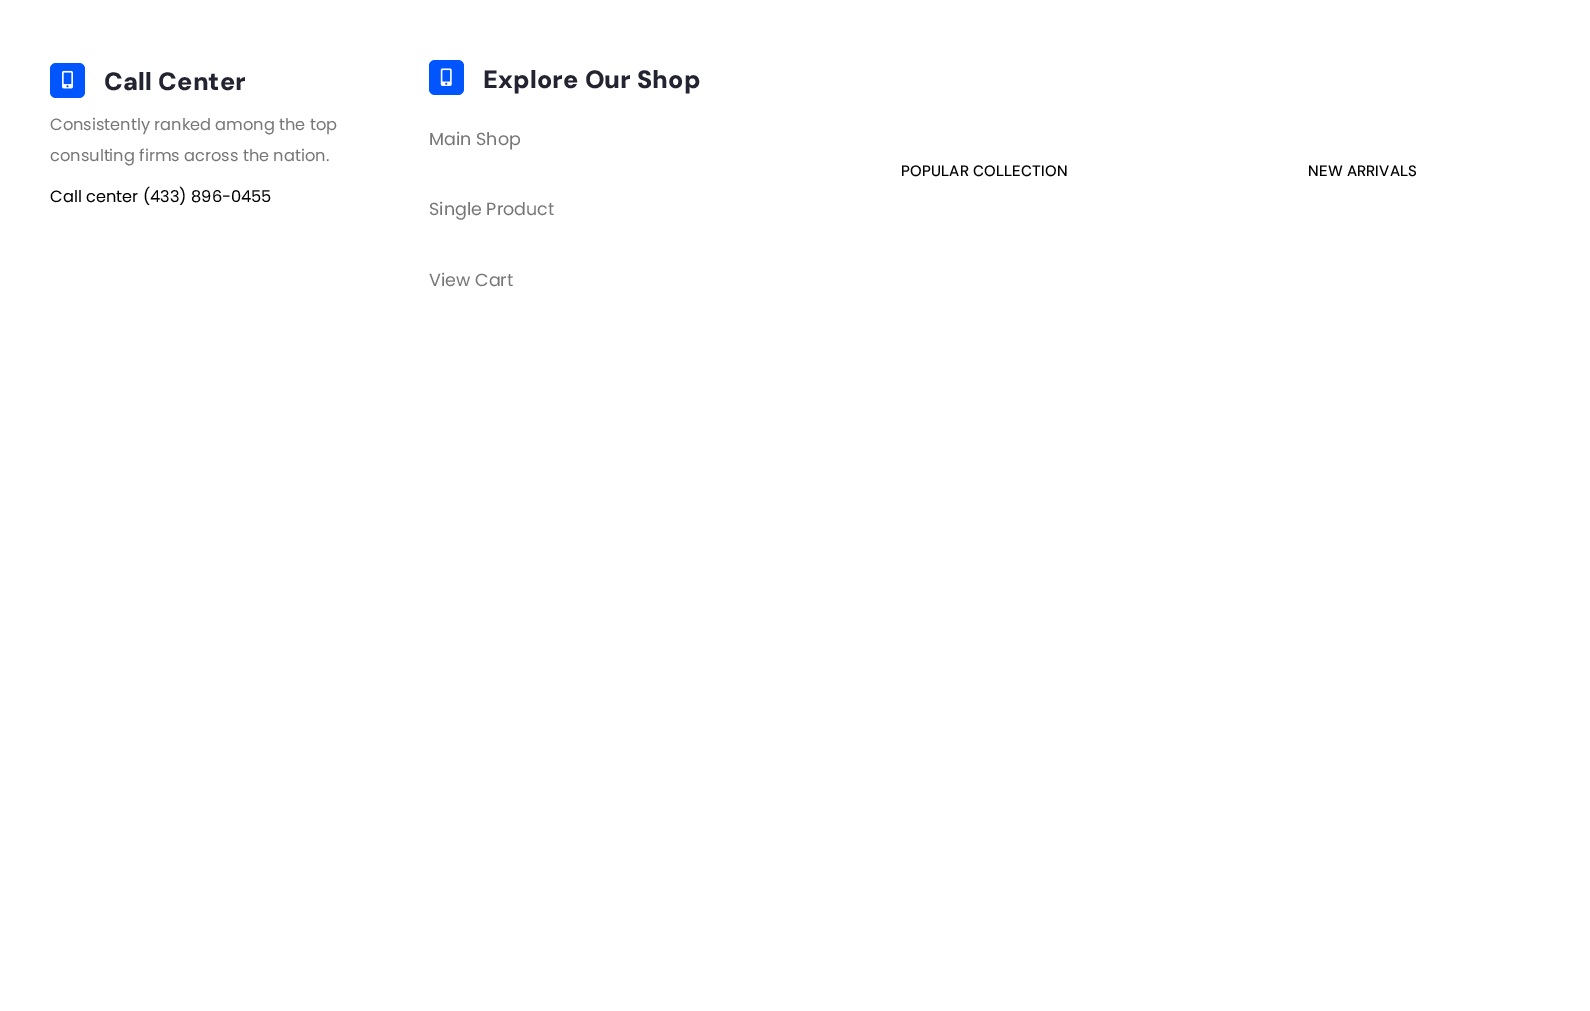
%!PS
<< /PageSize [1590 1011] >> setpagedevice
/roundrect { 5 dict begin { /r /h /w /y /x } { exch def } forall
  x r add y moveto x w add y 2 copy h add r arct x w add y h add x 1 index r arct
  x y h add x y r arct x y 2 copy exch w add exch r arct closepath end } def
/picture { 5 dict begin { /h /w /y /x /name } { exch def } forall
  gsave x y translate w h scale
  w h 8 [w 0 0 h 0 0] name (r) file false 3 colorimage grestore end } def
0 1011 translate 1 -1 scale
4 setmiterlimit
1 setgray
0 0 1590 1011 rectfill
0 0.333 1 setrgbcolor
50 63 35 35 6 roundrect fill
(img1.rgb) 62 70 11 19 picture
/DMSans-Black [25 0 0 -25 0 0] selectfont
0.137 0.137 0.192 setrgbcolor
104 90 moveto 0.2 0 (Call Center) ashow
/Poppins-Regular [16.25 0 0 -16.25 0 0] selectfont
0.463 setgray
50 130 moveto (Consistently ranked among the top) show
50 161 moveto (consulting firms across the nation.) show
0 setgray
50 202 moveto (Call center \(433\) 896-0455) show
0 0.333 1 setrgbcolor
429 60 35 35 6 roundrect fill
(img2.rgb) 440 68 12 18 picture
/DMSans-Black [25 0 0 -25 0 0] selectfont
0.137 0.137 0.192 setrgbcolor
483 88 moveto 0.2 0 (Explore Our Shop) ashow
/Poppins-Regular [17.5 0 0 -17.5 0 0] selectfont
0.463 setgray
429 145 moveto (Main Shop) show
429 215 moveto (Single Product) show
429 286 moveto (View Cart) show
/DMSans-Medium [15 0 0 -15 0 0] selectfont
0 setgray
901 176 moveto 0.2 0 (POPULAR COLLECTION) ashow
1308 176 moveto 0.2 0 (NEW ARRIVALS) ashow
showpage
